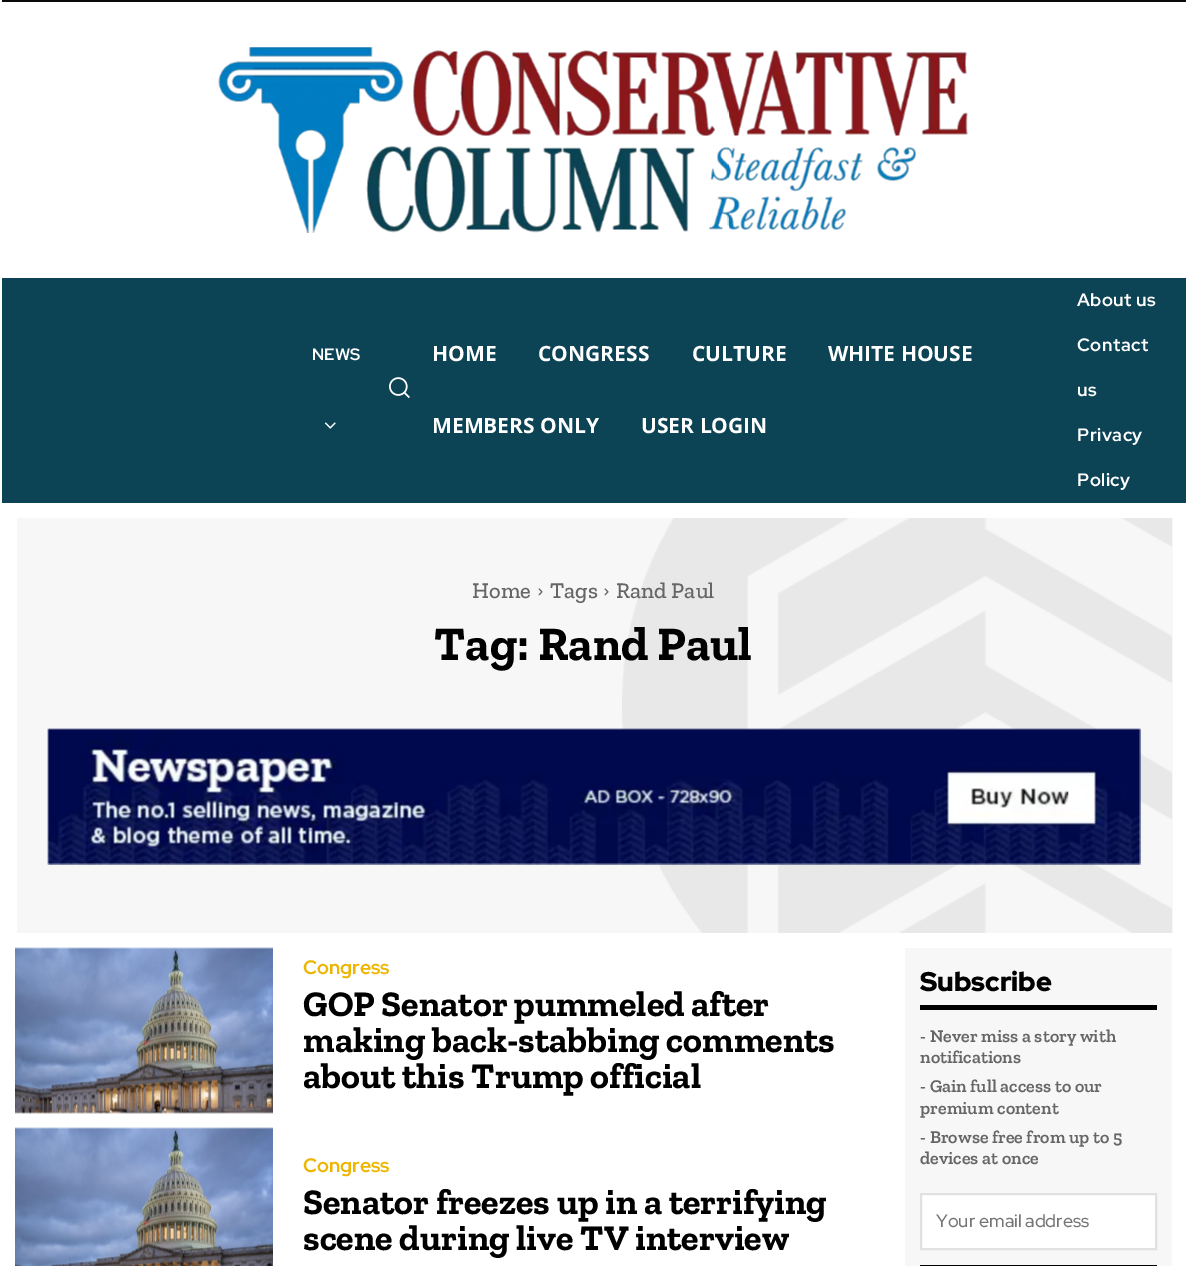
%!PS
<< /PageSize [1186 1266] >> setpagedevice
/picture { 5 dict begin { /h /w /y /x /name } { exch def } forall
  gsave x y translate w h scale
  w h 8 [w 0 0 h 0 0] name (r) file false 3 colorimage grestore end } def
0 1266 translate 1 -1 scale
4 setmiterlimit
1 setgray
0 0 1186 1266 rectfill
0.039 setgray
2 0 1184 2 rectfill
(img1.rgb) 218 47 750 186 picture
0.047 0.263 0.333 setrgbcolor
2 278 1184 225 rectfill
/RedHatDisplay-Bold [16.5 0 0 -16.5 0 0] selectfont
1 setgray
312 360 moveto (NEWS) show
(img2.rgb) 324 422 12 7 picture
/OpenSans-Bold [21 0 0 -21 0 0] selectfont
432 361 moveto (HOME) show
538 361 moveto (CONGRESS) show
692 361 moveto (CULTURE) show
828 361 moveto (WHITE HOUSE) show
432 433 moveto (MEMBERS ONLY) show
641 433 moveto (USER LOGIN) show
(img3.rgb) 389 377 21 22 picture
/RedHatDisplay-Bold [18 0 0 -18 0 0] selectfont
1077 306 moveto 0.5 0 (About us) ashow
1077 351 moveto 0.5 0 (Contact) ashow
1077 396 moveto 0.5 0 (us) ashow
1077 441 moveto 0.5 0 (Privacy) ashow
1077 486 moveto 0.5 0 (Policy) ashow
0.969 setgray
17 518 1156 415 rectfill
(img4.rgb) 622 518 550 415 picture
/ZillaSlab-Medium [22.5 0 0 -22.5 0 0] selectfont
0.4 setgray
472 598 moveto (Home) show
(img5.rgb) 538 588 5 8 picture
550 598 moveto (Tags) show
(img5.rgb) 604 588 5 8 picture
616 598 moveto (Rand Paul) show
/ZillaSlab-Bold [48 0 0 -48 0 0] selectfont
0 setgray
434 660 moveto (Tag: Rand Paul) show
(img6.rgb) 47 728 1094 137 picture
(img7.rgb) 15 947 258 167 picture
/RedHatDisplay-Bold [19.5 0 0 -19.5 0 0] selectfont
0.929 0.71 0 setrgbcolor
303 974 moveto (Congress) show
/ZillaSlab-Bold [36 0 0 -36 0 0] selectfont
0 setgray
303 1016 moveto (GOP Senator pummeled after) show
303 1052 moveto (making back-stabbing comments) show
303 1088 moveto (about this Trump official) show
(img8.rgb) 15 1127 258 139 picture
/RedHatDisplay-Bold [19.5 0 0 -19.5 0 0] selectfont
0.929 0.71 0 setrgbcolor
303 1172 moveto (Congress) show
/ZillaSlab-Bold [36 0 0 -36 0 0] selectfont
0 setgray
303 1214 moveto (Senator freezes up in a terrifying) show
303 1250 moveto (scene during live TV interview) show
0.969 setgray
905 948 267 318 rectfill
0 setgray
920 1005 237 5 rectfill
/RedHatDisplay-Black [27 0 0 -27 0 0] selectfont
920 991 moveto (Subscribe) show
/ZillaSlab-SemiBold [18 0 0 -18 0 0] selectfont
0.4 setgray
920 1042 moveto (- Never miss a story with) show
920 1063 moveto (notifications) show
920 1092 moveto (- Gain full access to our) show
920 1114 moveto (premium content) show
920 1143 moveto (- Browse free from up to 5) show
920 1164 moveto (devices at once) show
1 setgray
newpath 921 1194 moveto 1156 1194 lineto 1156 1249 lineto 921 1249 lineto closepath gsave fill grestore
0.882 setgray
2 setlinewidth
stroke
/RedHatDisplay-Medium [18 0 0 -18 0 0] selectfont
0.459 setgray
936 1227 moveto (Your email address) show
0 setgray
920 1265 237 1 rectfill
showpage
